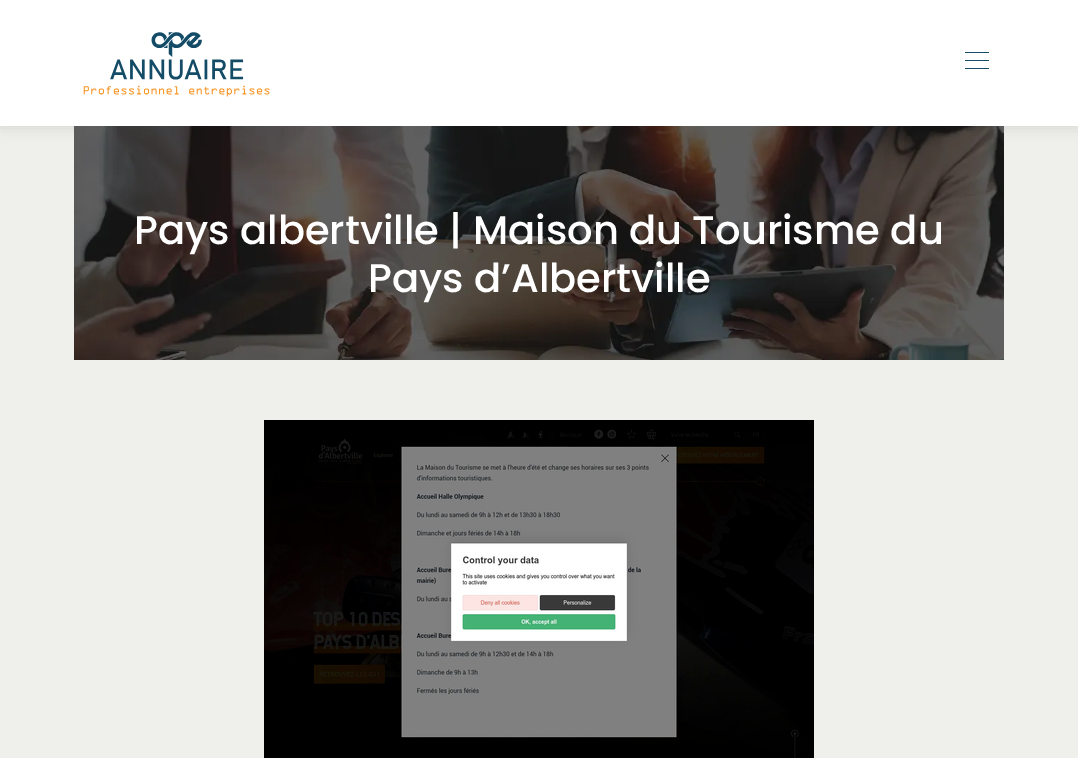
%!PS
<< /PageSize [1078 758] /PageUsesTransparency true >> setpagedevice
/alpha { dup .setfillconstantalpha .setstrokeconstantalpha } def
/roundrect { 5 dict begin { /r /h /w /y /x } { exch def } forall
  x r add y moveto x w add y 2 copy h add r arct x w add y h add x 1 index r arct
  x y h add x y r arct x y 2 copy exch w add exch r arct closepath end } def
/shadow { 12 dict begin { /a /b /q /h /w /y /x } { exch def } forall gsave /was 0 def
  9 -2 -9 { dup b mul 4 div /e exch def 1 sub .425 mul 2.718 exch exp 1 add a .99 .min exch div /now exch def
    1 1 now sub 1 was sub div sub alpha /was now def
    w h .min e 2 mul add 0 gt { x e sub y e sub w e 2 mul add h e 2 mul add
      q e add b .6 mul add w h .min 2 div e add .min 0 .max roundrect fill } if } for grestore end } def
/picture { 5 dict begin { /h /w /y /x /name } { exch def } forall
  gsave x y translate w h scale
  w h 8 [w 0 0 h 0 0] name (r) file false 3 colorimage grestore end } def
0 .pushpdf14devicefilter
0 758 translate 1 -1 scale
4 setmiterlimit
0.937 0.937 0.922 setrgbcolor
0 0 1078 758 rectfill
0 setgray
0 2 1078 126 0 6.5 0.1 shadow
1 setgray
0 0 1078 126 rectfill
(img1.rgb) 83 32 187 65 picture
0.078 0.298 0.404 setrgbcolor
965 52 24 1 rectfill
965 60 24 1 rectfill
965 68 24 1 rectfill
(img2.rgb) 74 126 930 234 picture
/Poppins-Medium [40 0 0 -40 0 0] selectfont
1 setgray
134 244 moveto (Pays albertville | Maison du Tourisme du) show
368 292 moveto (Pays d’Albertville) show
(img3.rgb) 264 420 550 338 picture
.poppdf14devicefilter showpage
